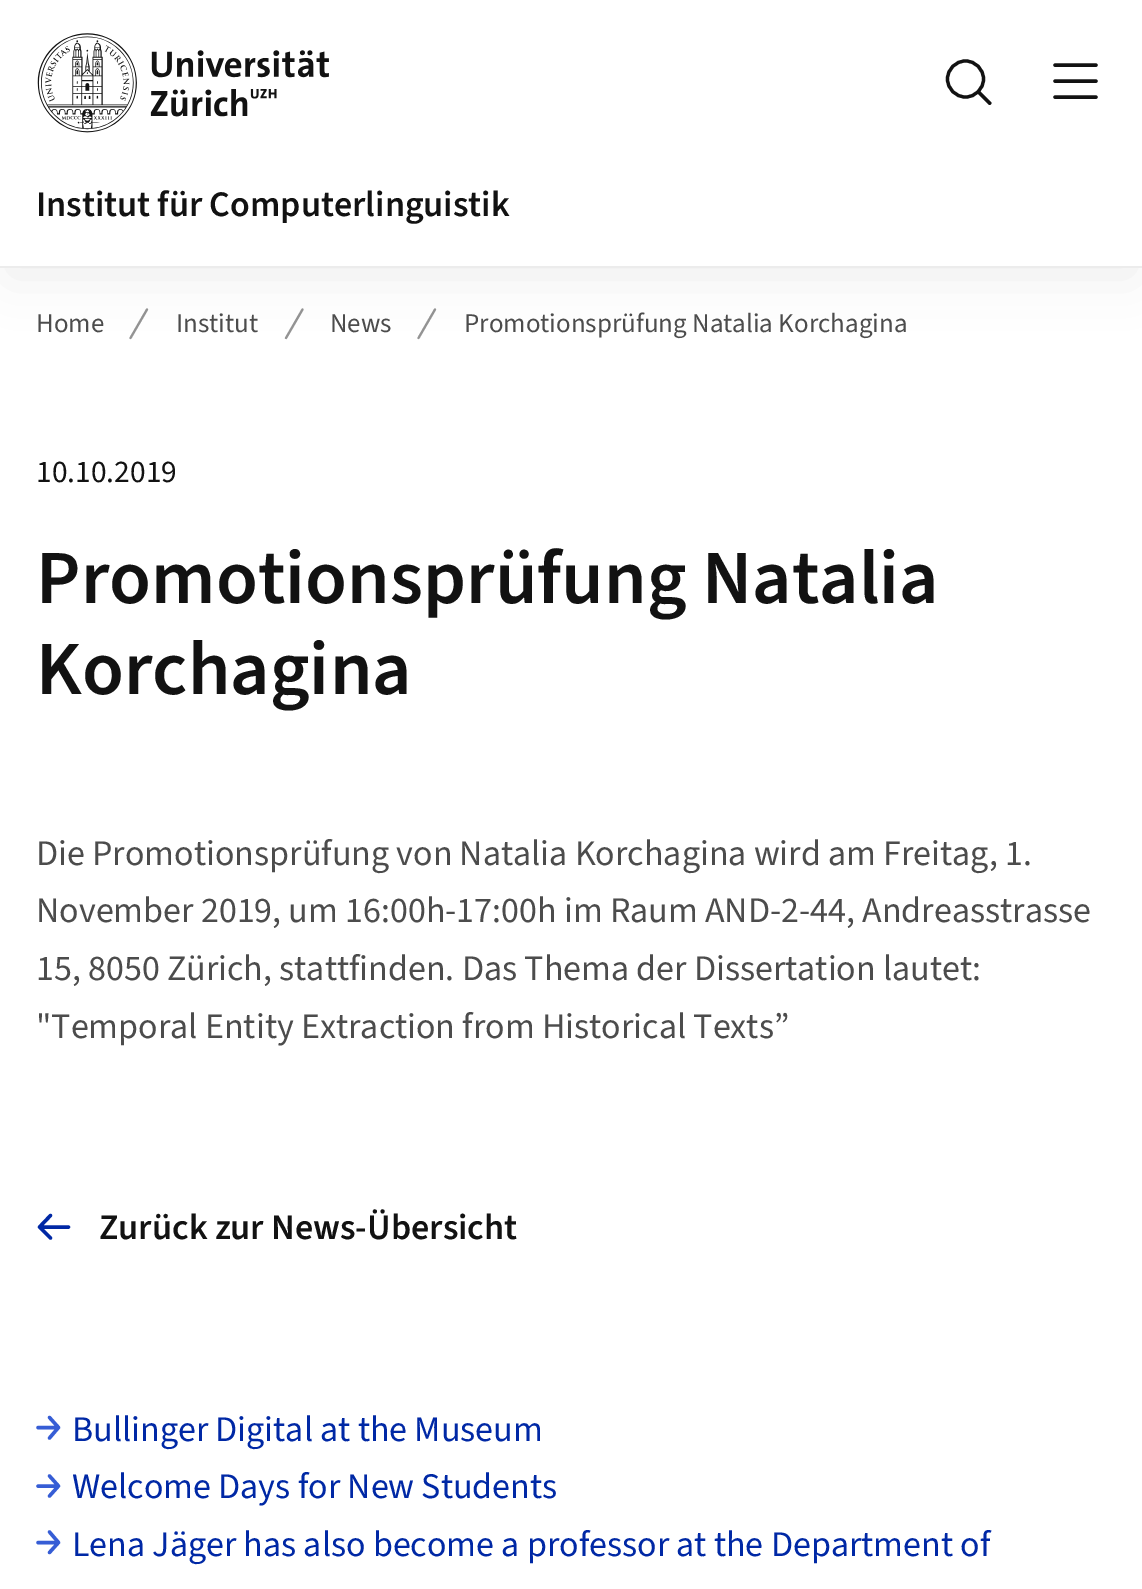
%!PS
<< /PageSize [1142 1589] /PageUsesTransparency true >> setpagedevice
/alpha { dup .setfillconstantalpha .setstrokeconstantalpha } def
/roundrect { 5 dict begin { /r /h /w /y /x } { exch def } forall
  x r add y moveto x w add y 2 copy h add r arct x w add y h add x 1 index r arct
  x y h add x y r arct x y 2 copy exch w add exch r arct closepath end } def
/shadow { 12 dict begin { /a /b /q /h /w /y /x } { exch def } forall gsave /was 0 def
  9 -2 -9 { dup b mul 4 div /e exch def 1 sub .425 mul 2.718 exch exp 1 add a .99 .min exch div /now exch def
    1 1 now sub 1 was sub div sub alpha /was now def
    w h .min e 2 mul add 0 gt { x e sub y e sub w e 2 mul add h e 2 mul add
      q e add b .6 mul add w h .min 2 div e add .min 0 .max roundrect fill } if } for grestore end } def
/picture { 5 dict begin { /h /w /y /x /name } { exch def } forall
  gsave x y translate w h scale
  w h 8 [w 0 0 h 0 0] name (r) file false 3 colorimage grestore end } def
0 .pushpdf14devicefilter
0 1589 translate 1 -1 scale
4 setmiterlimit
1 setgray
0 0 1142 1589 rectfill
0.58 setgray
2.1 setlinewidth
1 setlinecap
newpath 130.5 338 moveto 147 309.5 lineto stroke
newpath 286 338 moveto 302.5 309.5 lineto stroke
newpath 418.5 338 moveto 435 309.5 lineto stroke
0.071 setgray
9 25 1125 250 0 25 0.07 shadow
1 setgray
0 0 1142 266 rectfill
0.925 setgray
0 266 1142 2 rectfill
(img1.rgb) 37 33 292 100 picture
0.071 setgray
3.2 setlinewidth
0 setlinecap
newpath 965.5 79 18 0 360 arc closepath stroke
newpath 979.5 90.5 moveto 978 89 975.5 91.5 977 93 curveto closepath 988.5 104.5 moveto 990 106 992.5 103.5 991 102 curveto closepath 977 93 moveto 988.5 104.5 lineto 991 102 lineto 979.5 90.5 lineto closepath fill
3.4 setlinewidth
1 setlinecap
1 setlinejoin
newpath 1055 65 moveto 1096 65 lineto 1055 81 moveto 1096 81 lineto 1055 97 moveto 1096 97 lineto stroke
/SourceSans3-SemiBold [36 0 0 -36 0 0] selectfont
36 216 moveto (Institut für Computerlinguistik) show
/SourceSans3-Regular [27 0 0 -27 0 0] selectfont
0.298 setgray
36 332 moveto (Home) show
176 332 moveto (Institut) show
330 332 moveto (News) show
464 332 moveto (Promotionsprüfung Natalia Korchagina) show
/SourceSans3-Regular [31.5 0 0 -31.5 0 0] selectfont
0.071 setgray
36 482 moveto (10.10.2019) show
/SourceSans3-SemiBold [76.5 0 0 -76.5 0 0] selectfont
36 603 moveto (Promotionsprüfung Natalia) show
36 694 moveto (Korchagina) show
/SourceSans3-Regular [36 0 0 -36 0 0] selectfont
0.298 setgray
36 865 moveto (Die Promotionsprüfung von Natalia Korchagina wird am Freitag, 1.) show
36 922 moveto (November 2019, um 16:00h-17:00h im Raum AND-2-44, Andreasstrasse) show
36 980 moveto (15, 8050 Zürich, stattfinden. Das Thema der Dissertation lautet:) show
36 1038 moveto ("Temporal Entity Extraction from Historical Texts”) show
0 0.157 0.647 setrgbcolor
newpath 68.5 1227 moveto 39.5 1227 lineto 50.5 1238 moveto 39.5 1227 lineto 50.5 1215.5 lineto stroke
/SourceSans3-SemiBold [36 0 0 -36 0 0] selectfont
0.071 setgray
99 1239 moveto (Zurück zur News-Übersicht) show
0.212 0.365 0.835 setrgbcolor
newpath 49.5 1417.5 moveto 58.5 1427.5 lineto 58.5 1427.5 moveto 49.5 1438 lineto 58.5 1427.5 moveto 38 1427.5 lineto stroke
/SourceSans3-Regular [36 0 0 -36 0 0] selectfont
0 0.157 0.647 setrgbcolor
72 1441 moveto (Bullinger Digital at the Museum) show
0.212 0.365 0.835 setrgbcolor
newpath 49.5 1476 moveto 58.5 1486 lineto 58.5 1486 moveto 49.5 1496 lineto 58.5 1486 moveto 38 1486 lineto stroke
0 0.157 0.647 setrgbcolor
72 1498 moveto (Welcome Days for New Students) show
0.212 0.365 0.835 setrgbcolor
newpath 49.5 1532 moveto 58.5 1542.5 lineto 58.5 1542.5 moveto 49.5 1552.5 lineto 58.5 1542.5 moveto 38 1542.5 lineto stroke
0 0.157 0.647 setrgbcolor
72 1556 moveto (Lena Jäger has also become a professor at the Department of) show
.poppdf14devicefilter showpage
